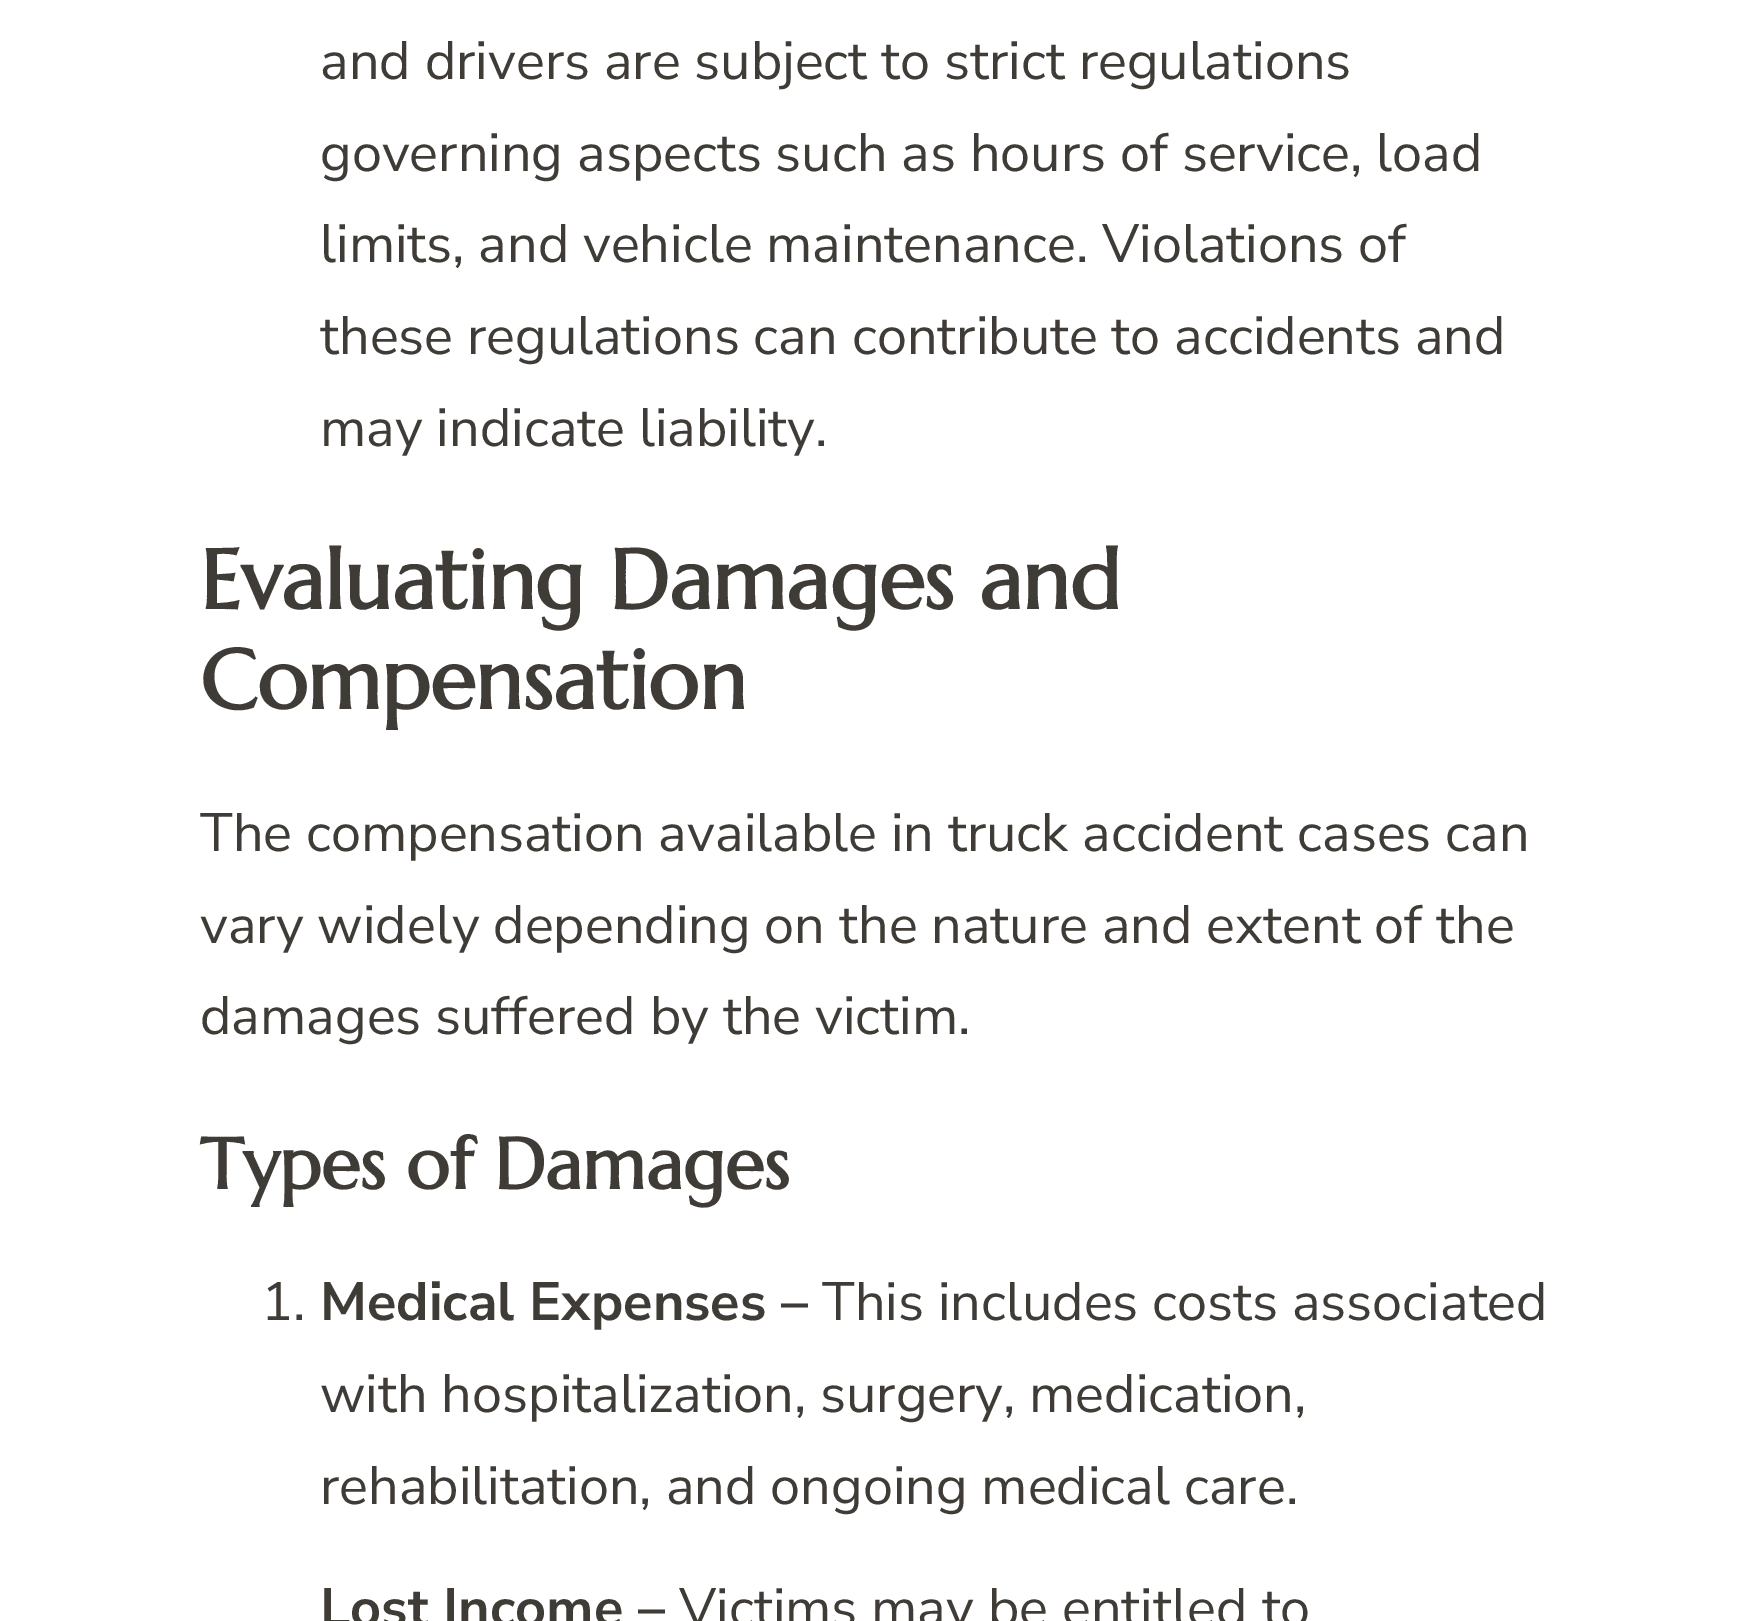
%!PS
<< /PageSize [1749 1621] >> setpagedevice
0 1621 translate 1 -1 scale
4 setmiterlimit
1 setgray
0 0 1749 1621 rectfill
/NunitoSans-Regular [54 0 0 -54 0 0] selectfont
0.247 0.231 0.212 setrgbcolor
320 79 moveto (and drivers are subject to strict regulations) show
320 171 moveto (governing aspects such as hours of service, load) show
320 262 moveto (limits, and vehicle maintenance. Violations of) show
320 354 moveto (these regulations can contribute to accidents and) show
320 446 moveto (may indicate liability.) show
/Marcellus-Bold [83.75 0 0 -83.75 0 0] selectfont
200 609 moveto (Evaluating Damages and) show
200 709 moveto (Compensation) show
/NunitoSans-Regular [54 0 0 -54 0 0] selectfont
200 851 moveto (The compensation available in truck accident cases can) show
200 943 moveto (vary widely depending on the nature and extent of the) show
200 1034 moveto (damages suffered by the victim.) show
/Marcellus-Bold [71.75 0 0 -71.75 0 0] selectfont
200 1189 moveto (Types of Damages) show
/NunitoSans-Regular [54 0 0 -54 0 0] selectfont
261 1320 moveto (1.) show
/NunitoSans-Bold [54 0 0 -54 0 0] selectfont
320 1320 moveto (Medical Expenses –) show
/NunitoSans-Regular [54 0 0 -54 0 0] selectfont
822 1320 moveto (This includes costs associated) show
320 1412 moveto (with hospitalization, surgery, medication,) show
320 1504 moveto (rehabilitation, and ongoing medical care.) show
/NunitoSans-Bold [54 0 0 -54 0 0] selectfont
320 1626 moveto (Lost Income –) show
/NunitoSans-Regular [54 0 0 -54 0 0] selectfont
679 1626 moveto (Victims may be entitled to) show
showpage
